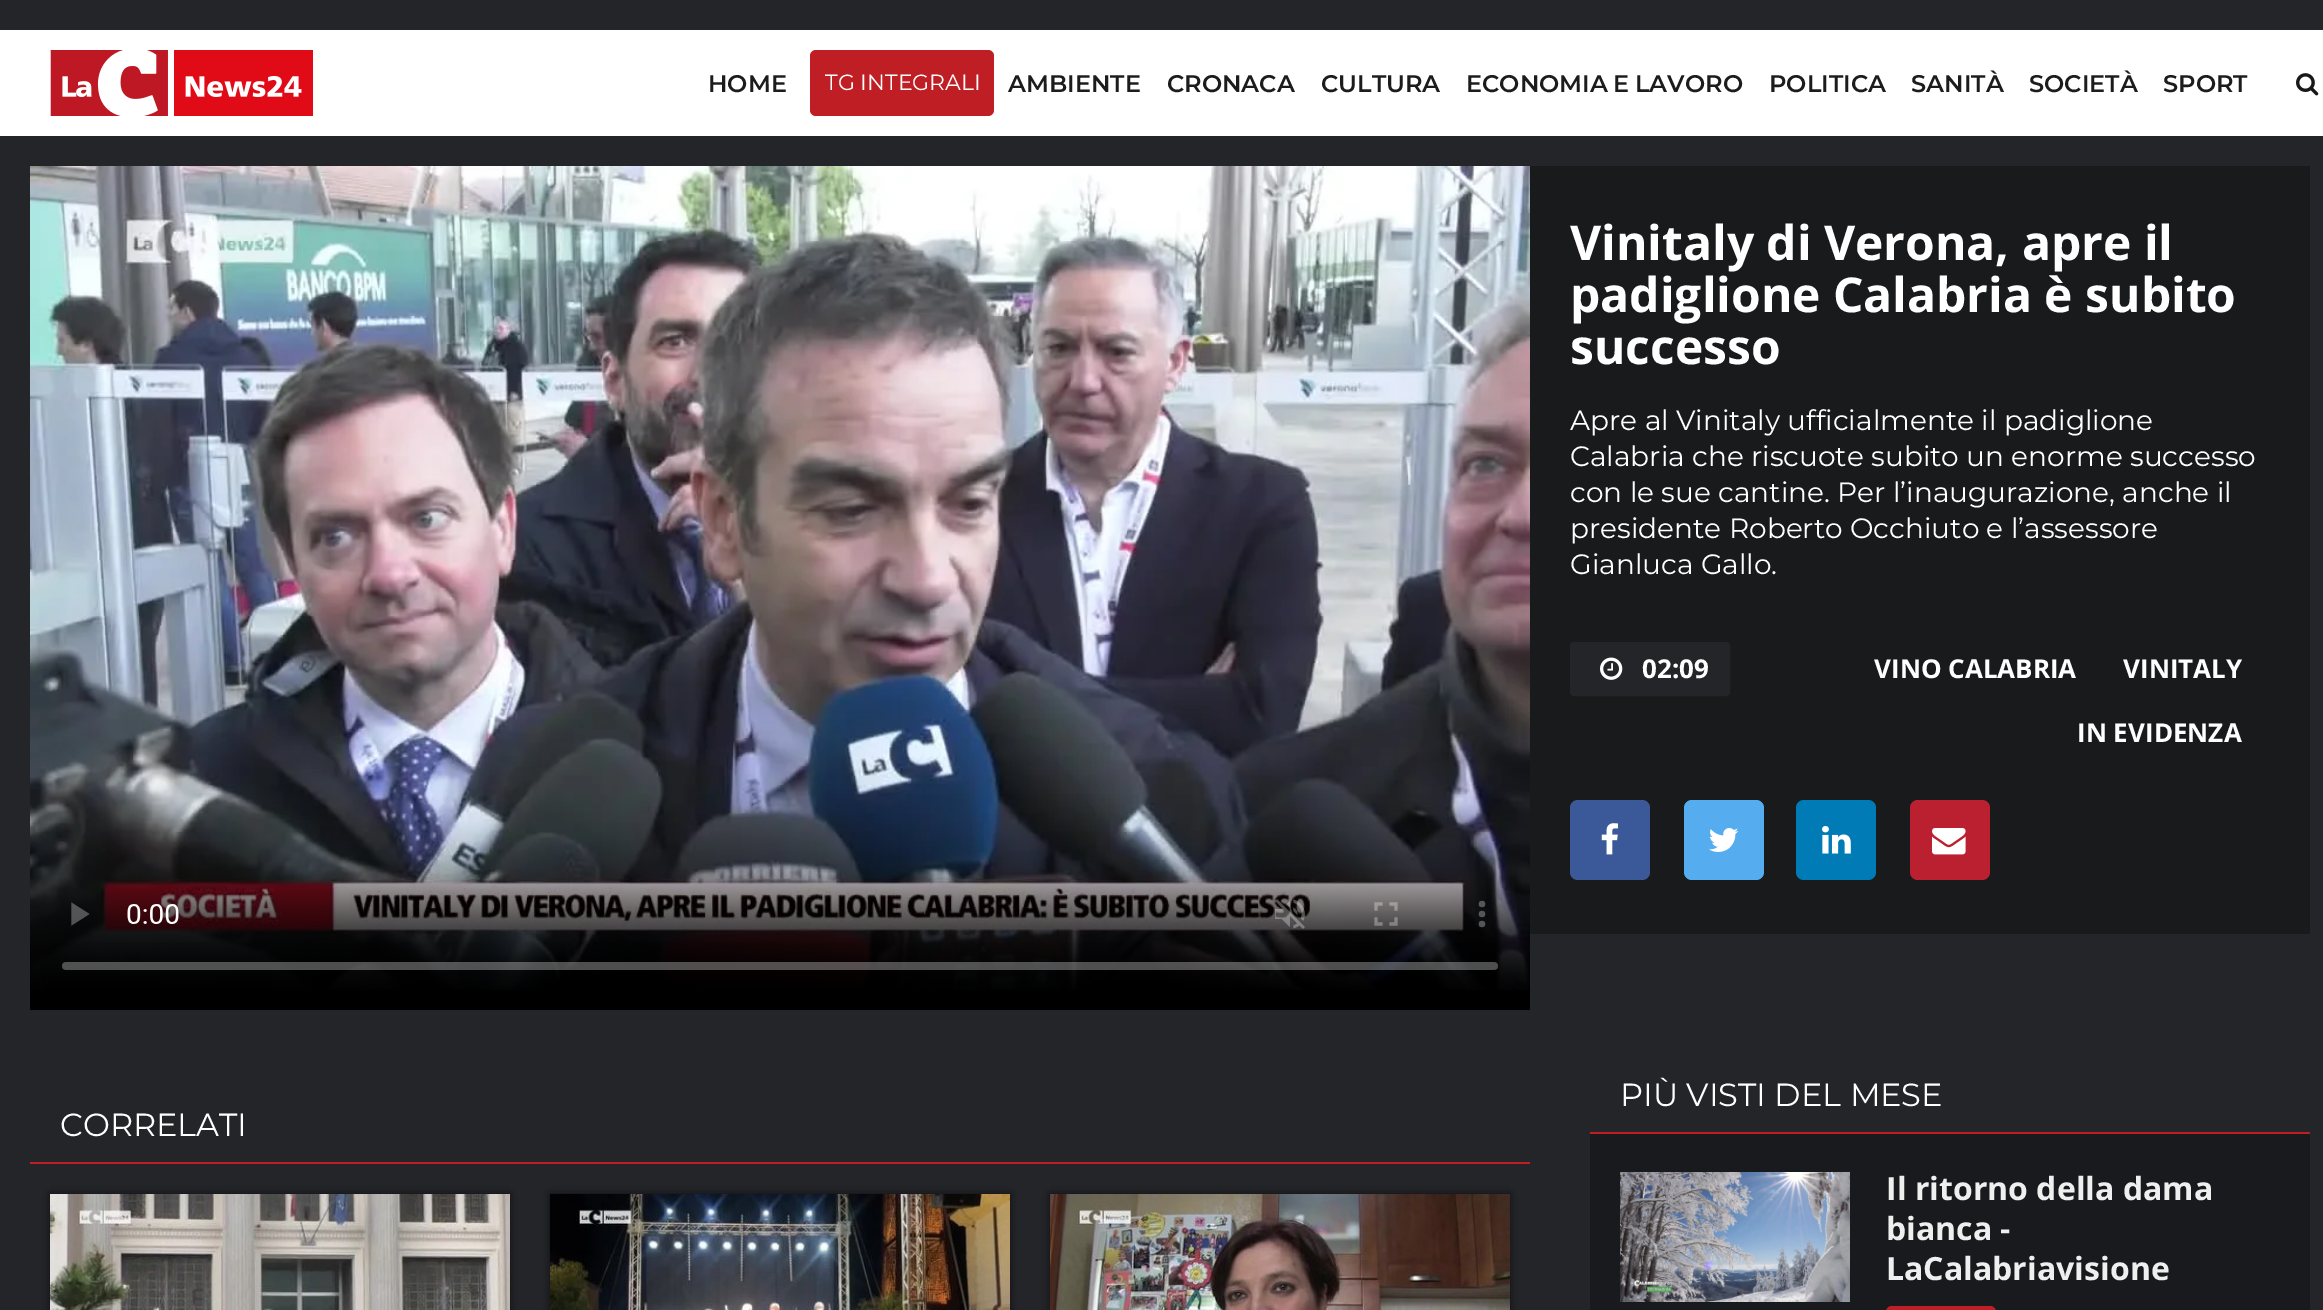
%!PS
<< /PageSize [2323 1310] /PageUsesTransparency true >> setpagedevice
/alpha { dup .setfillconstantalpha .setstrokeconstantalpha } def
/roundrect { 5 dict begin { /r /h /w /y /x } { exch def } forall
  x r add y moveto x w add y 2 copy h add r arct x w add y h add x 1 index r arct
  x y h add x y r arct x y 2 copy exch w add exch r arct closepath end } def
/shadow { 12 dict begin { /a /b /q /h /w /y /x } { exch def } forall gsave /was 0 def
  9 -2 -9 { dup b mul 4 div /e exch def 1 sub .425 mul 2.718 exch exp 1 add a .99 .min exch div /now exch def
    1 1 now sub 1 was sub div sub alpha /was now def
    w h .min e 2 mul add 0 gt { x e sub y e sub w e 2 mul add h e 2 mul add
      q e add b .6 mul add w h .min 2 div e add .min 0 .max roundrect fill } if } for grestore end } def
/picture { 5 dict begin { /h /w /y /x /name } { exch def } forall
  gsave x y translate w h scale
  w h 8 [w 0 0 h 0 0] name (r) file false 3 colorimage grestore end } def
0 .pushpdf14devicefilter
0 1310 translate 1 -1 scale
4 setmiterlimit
0.137 0.145 0.161 setrgbcolor
0 0 2323 1310 rectfill
1 setgray
0 30 2323 106 rectfill
(img1.rgb) 50 50 263 66 picture
/Montserrat-SemiBold [24 0 0 -24 0 0] selectfont
0.11 setgray
708 92 moveto (HOME) show
0.749 0.122 0.141 setrgbcolor
810 50 184 66 6 roundrect fill
/Montserrat-Regular [22 0 0 -22 0 0] selectfont
1 setgray
825 90 moveto (TG INTEGRALI) show
/Montserrat-SemiBold [24 0 0 -24 0 0] selectfont
0.11 setgray
1008 92 moveto (AMBIENTE) show
1167 92 moveto (CRONACA) show
1321 92 moveto (CULTURA) show
1466 92 moveto -1 0 32 (ECONOMIA E LAVORO) widthshow
1769 92 moveto (POLITICA) show
1911 92 moveto (SANITÀ) show
2029 92 moveto (SOCIETÀ) show
2163 92 moveto (SPORT) show
(img2.rgb) 2296 73 23 23 picture
0 setgray
30 990 1500 20 rectfill
(img3.rgb) 30 166 1500 824 picture
(img4.rgb) 127 904 52 20 picture
0.098 0.102 0.11 setrgbcolor
1530 166 780 768 rectfill
/OpenSans-Bold [48 0 0 -48 0 0] selectfont
1 setgray
1570 260 moveto (Vinitaly di Verona, apre il) show
1570 312 moveto (padiglione Calabria è subito) show
1570 364 moveto (successo) show
/Montserrat-Regular [28 0 0 -28 0 0] selectfont
1570 430 moveto (Apre al Vinitaly ufficialmente il padiglione) show
1570 466 moveto (Calabria che riscuote subito un enorme successo) show
1570 502 moveto (con le sue cantine. Per l’inaugurazione, anche il) show
1570 538 moveto (presidente Roberto Occhiuto e l’assessore) show
1570 574 moveto (Gianluca Gallo.) show
0.137 0.145 0.161 setrgbcolor
1571 643 158 52 3 roundrect gsave fill grestore
2 setlinewidth
stroke
(img5.rgb) 1600 657 23 23 picture
/OpenSans-Bold [26 0 0 -26 0 0] selectfont
1 setgray
1642 678 moveto (02:09) show
1874 678 moveto (VINO CALABRIA) show
2123 678 moveto (VINITALY) show
2077 742 moveto (IN EVIDENZA) show
0.231 0.349 0.596 setrgbcolor
1570 800 80 80 8 roundrect fill
(img6.rgb) 1601 823 17 32 picture
0.333 0.675 0.933 setrgbcolor
1684 800 80 80 8 roundrect fill
(img7.rgb) 1709 828 30 24 picture
0 0.482 0.714 setrgbcolor
1796 800 80 80 8 roundrect fill
(img8.rgb) 1822 826 29 28 picture
0.729 0.125 0.184 setrgbcolor
1910 800 80 80 8 roundrect fill
(img9.rgb) 1932 828 34 27 picture
0.749 0.122 0.141 setrgbcolor
30 1162 1500 2 rectfill
/Montserrat-Regular [32 0 0 -32 0 0] selectfont
1 setgray
60 1136 moveto (CORRELATI) show
0 setgray
50 1194 460 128 0 4 0.5 shadow
(img10.rgb) 50 1194 460 116 picture
550 1194 460 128 0 4 0.5 shadow
(img11.rgb) 550 1194 460 116 picture
1050 1194 460 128 0 4 0.5 shadow
(img12.rgb) 1050 1194 460 116 picture
0.749 0.122 0.141 setrgbcolor
1590 1132 720 2 rectfill
1 setgray
1620 1106 moveto (PIÙ VISTI DEL MESE) show
0.098 0.102 0.114 setrgbcolor
1590 1134 720 176 rectfill
(img13.rgb) 1620 1172 230 130 picture
/OpenSans-Bold [32 0 0 -32 0 0] selectfont
0.937 setgray
1886 1200 moveto (Il ritorno della dama) show
1886 1240 moveto (bianca -) show
1886 1280 moveto (LaCalabriavisione) show
0.749 0.122 0.141 setrgbcolor
1886 1306 110 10 6 roundrect fill
.poppdf14devicefilter showpage
